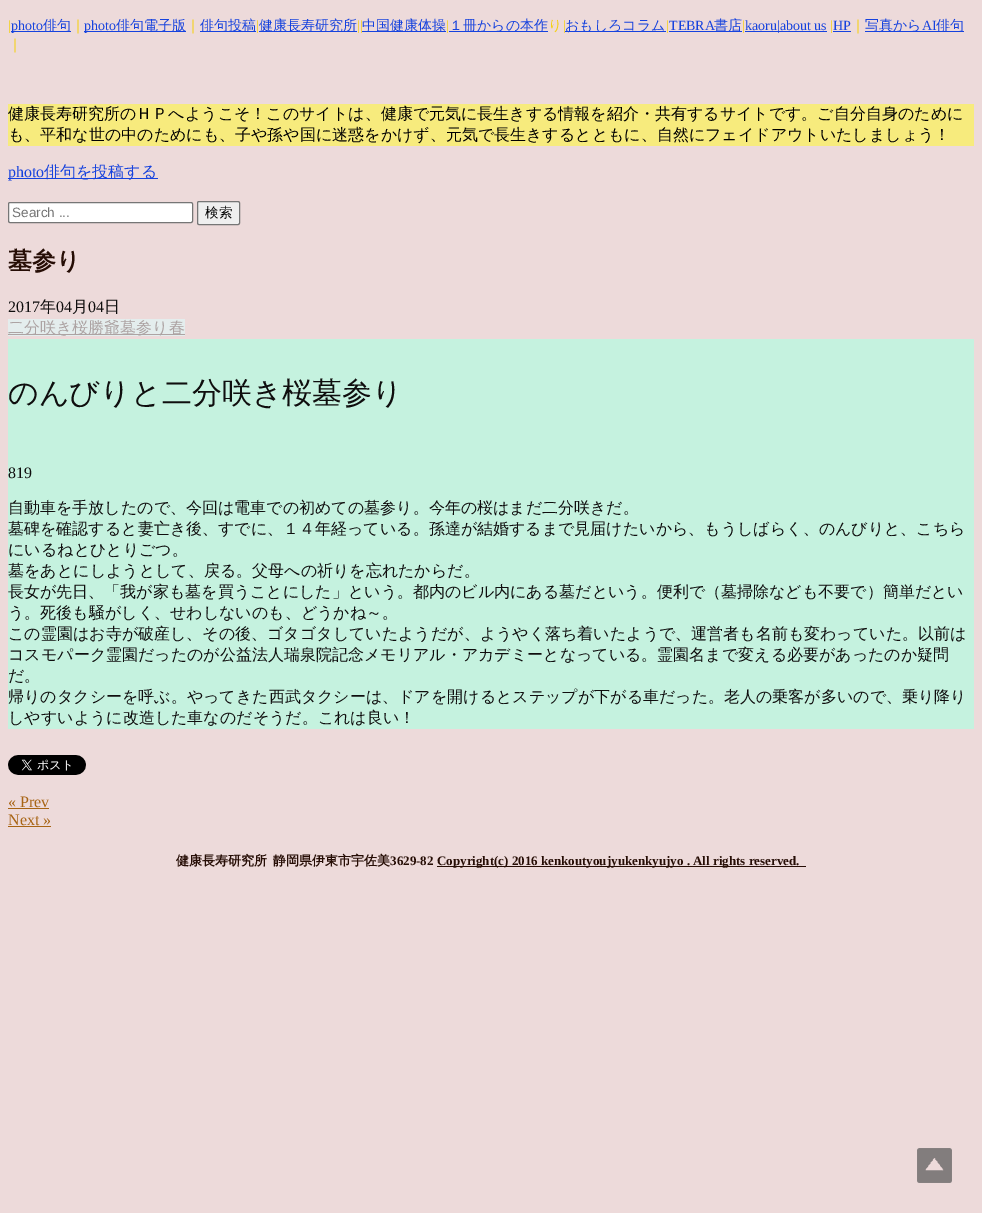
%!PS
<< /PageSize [982 1213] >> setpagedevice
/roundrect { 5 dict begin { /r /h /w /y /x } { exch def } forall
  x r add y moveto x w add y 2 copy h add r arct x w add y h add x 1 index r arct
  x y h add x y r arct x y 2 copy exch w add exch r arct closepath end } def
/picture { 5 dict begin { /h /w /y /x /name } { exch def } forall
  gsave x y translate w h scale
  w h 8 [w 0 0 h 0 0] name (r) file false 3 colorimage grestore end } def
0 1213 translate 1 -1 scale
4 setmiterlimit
0.929 0.855 0.855 setrgbcolor
0 0 982 1213 rectfill
/LiberationSerif-Regular [14 0 0 -14 0 0] selectfont
0.961 0.82 0.078 setrgbcolor
8 30 moveto (|) show
0.086 0.259 0.871 setrgbcolor
11 31 60 1 rectfill
11 30 moveto (photo) show
/WenQuanYiZenHei-Medium [14 0 0 -14 0 0] selectfont
43 30 moveto (俳句) show
0.961 0.82 0.078 setrgbcolor
71 30 moveto (｜) show
0.086 0.259 0.871 setrgbcolor
84 31 102 1 rectfill
/LiberationSerif-Regular [14 0 0 -14 0 0] selectfont
84 30 moveto (photo) show
/WenQuanYiZenHei-Medium [14 0 0 -14 0 0] selectfont
116 30 moveto (俳句電子版) show
0.961 0.82 0.078 setrgbcolor
186 30 moveto (｜) show
0.086 0.259 0.871 setrgbcolor
200 31 56 1 rectfill
200 30 moveto (俳句投稿) show
/LiberationSerif-Regular [14 0 0 -14 0 0] selectfont
0.961 0.82 0.078 setrgbcolor
256 30 moveto (|) show
0.086 0.259 0.871 setrgbcolor
259 31 98 1 rectfill
/WenQuanYiZenHei-Medium [14 0 0 -14 0 0] selectfont
259 30 moveto (健康長寿研究所) show
/LiberationSerif-Regular [14 0 0 -14 0 0] selectfont
0.961 0.82 0.078 setrgbcolor
357 30 moveto (||) show
0.086 0.259 0.871 setrgbcolor
362 31 84 1 rectfill
/WenQuanYiZenHei-Medium [14 0 0 -14 0 0] selectfont
362 30 moveto (中国健康体操) show
/LiberationSerif-Regular [14 0 0 -14 0 0] selectfont
0.961 0.82 0.078 setrgbcolor
446 30 moveto (|) show
0.086 0.259 0.871 setrgbcolor
449 31 99 1 rectfill
/WenQuanYiZenHei-Medium [14 0 0 -14 0 0] selectfont
449 30 moveto (１冊からの本作) show
0.961 0.82 0.078 setrgbcolor
548 30 moveto (り) show
/LiberationSerif-Regular [14 0 0 -14 0 0] selectfont
563 30 moveto (|) show
0.086 0.259 0.871 setrgbcolor
565 31 101 1 rectfill
/WenQuanYiZenHei-Medium [14 0 0 -14 0 0] selectfont
565 30 moveto (おもしろコラム) show
/LiberationSerif-Regular [14 0 0 -14 0 0] selectfont
0.961 0.82 0.078 setrgbcolor
666 30 moveto (|) show
0.086 0.259 0.871 setrgbcolor
669 31 73 1 rectfill
669 30 moveto (TEBRA) show
/WenQuanYiZenHei-Medium [14 0 0 -14 0 0] selectfont
714 30 moveto (書店) show
/LiberationSerif-Regular [14 0 0 -14 0 0] selectfont
0.961 0.82 0.078 setrgbcolor
742 30 moveto (|) show
0.086 0.259 0.871 setrgbcolor
745 31 82 1 rectfill
745 30 moveto (kaoru|about us) show
0.961 0.82 0.078 setrgbcolor
830 30 moveto (|) show
0.086 0.259 0.871 setrgbcolor
833 31 18 1 rectfill
833 30 moveto (HP) show
/WenQuanYiZenHei-Medium [14 0 0 -14 0 0] selectfont
0.961 0.82 0.078 setrgbcolor
851 30 moveto (｜) show
0.086 0.259 0.871 setrgbcolor
865 31 99 1 rectfill
865 30 moveto (写真から) show
/LiberationSerif-Regular [14 0 0 -14 0 0] selectfont
922 30 moveto (AI) show
/WenQuanYiZenHei-Medium [14 0 0 -14 0 0] selectfont
936 30 moveto (俳句) show
0.961 0.82 0.078 setrgbcolor
8 49 moveto (｜) show
0.969 0.922 0.49 setrgbcolor
8 104 966 42 rectfill
/WenQuanYiZenHei-Medium [16 0 0 -16 0 0] selectfont
0 setgray
8 119 moveto (健康長寿研究所のＨＰへようこそ！このサイトは、健康で元気に長生きする情報を紹介・共有するサイトです。ご自分自身のために) show
8 140 moveto (も、平和な世の中のためにも、子や孫や国に迷惑をかけず、元気で長生きするとともに、自然にフェイドアウトいたしましょう！) show
0.086 0.259 0.871 setrgbcolor
8 178 150 1 rectfill
/LiberationSerif-Regular [16 0 0 -16 0 0] selectfont
8 177 moveto (photo) show
/WenQuanYiZenHei-Medium [16 0 0 -16 0 0] selectfont
44 177 moveto (俳句を投稿する) show
1 setgray
8.5 202.5 184 20 1.5 roundrect gsave fill grestore
0.463 setgray
stroke
/LiberationSans-Regular [13.5 0 0 -13.5 0 0] selectfont
0.459 setgray
12 217 moveto (Search ...) show
0.937 setgray
197.5 201.5 42 23 1.5 roundrect gsave fill grestore
0.463 setgray
stroke
/WenQuanYiZenHei-Medium [13.5 0 0 -13.5 0 0] selectfont
0 setgray
205 217 moveto (検索) show
/WenQuanYiZenHei-Bold [24 0 0 -24 0 0] selectfont
0.149 0.051 0.02 setrgbcolor
8 269 moveto (墓参り) show
/LiberationSerif-Regular [16 0 0 -16 0 0] selectfont
0.059 0.055 0.055 setrgbcolor
8 312 moveto (2017) show
/WenQuanYiZenHei-Medium [16 0 0 -16 0 0] selectfont
40 312 moveto (年) show
/LiberationSerif-Regular [16 0 0 -16 0 0] selectfont
56 312 moveto (04) show
/WenQuanYiZenHei-Medium [16 0 0 -16 0 0] selectfont
72 312 moveto (月) show
/LiberationSerif-Regular [16 0 0 -16 0 0] selectfont
88 312 moveto (04) show
/WenQuanYiZenHei-Medium [16 0 0 -16 0 0] selectfont
104 312 moveto (日) show
0.894 0.929 0.929 setrgbcolor
8 319 177 17 rectfill
0.678 0.639 0.639 setrgbcolor
8 334 177 1 rectfill
8 333 moveto (二分咲き桜勝爺墓参り春) show
0.773 0.949 0.875 setrgbcolor
8 339 966 390 rectfill
/WenQuanYiZenHei-Medium [30 0 0 -30 0 0] selectfont
0.059 0.055 0.055 setrgbcolor
8 403 moveto (のんびりと二分咲き桜墓参り) show
/LiberationSerif-Regular [16 0 0 -16 0 0] selectfont
8 478 moveto (819) show
/WenQuanYiZenHei-Medium [16 0 0 -16 0 0] selectfont
8 513 moveto (自動車を手放したので、今回は電車での初めての墓参り。今年の桜はまだ二分咲きだ。) show
8 534 moveto (墓碑を確認すると妻亡き後、すでに、１４年経っている。孫達が結婚するまで見届けたいから、もうしばらく、のんびりと、こちら) show
8 555 moveto (にいるねとひとりごつ。) show
8 576 moveto (墓をあとにしようとして、戻る。父母への祈りを忘れたからだ。) show
8 597 moveto (長女が先日、「我が家も墓を買うことにした」という。都内のビル内にある墓だという。便利で（墓掃除なども不要で）簡単だとい) show
8 618 moveto (う。死後も騒がしく、せわしないのも、どうかね～。) show
8 639 moveto (この霊園はお寺が破産し、その後、ゴタゴタしていたようだが、ようやく落ち着いたようで、運営者も名前も変わっていた。以前は) show
8 660 moveto (コスモパーク霊園だったのが公益法人瑞泉院記念メモリアル・アカデミーとなっている。霊園名まで変える必要があったのか疑問) show
8 681 moveto (だ。) show
8 702 moveto (帰りのタクシーを呼ぶ。やってきた西武タクシーは、ドアを開けるとステップが下がる車だった。老人の乗客が多いので、乗り降り) show
8 723 moveto (しやすいように改造した車なのだそうだ。これは良い！) show
(img1.rgb) 8 755 78 20 picture
/LiberationSerif-Regular [16 0 0 -16 0 0] selectfont
0.659 0.392 0.078 setrgbcolor
8 807 moveto (« Prev) show
8 808 41 1 rectfill
8 825 moveto (Next ») show
8 826 43 1 rectfill
/WenQuanYiZenHei-Bold [13 0 0 -13 0 0] selectfont
0.149 0.051 0.02 setrgbcolor
176 865 moveto (健康長寿研究所) show
273 865 moveto (静岡県伊東市宇佐美) show
/LiberationSerif-Bold [13 0 0 -13 0 0] selectfont
390 865 moveto (3629-82) show
437 866 369 1 rectfill
437 865 moveto (Copyright\(c\) 2016 kenkoutyoujyukenkyujyo . All rights reserved.) show
(img2.rgb) 917 1148 35 35 picture
showpage
